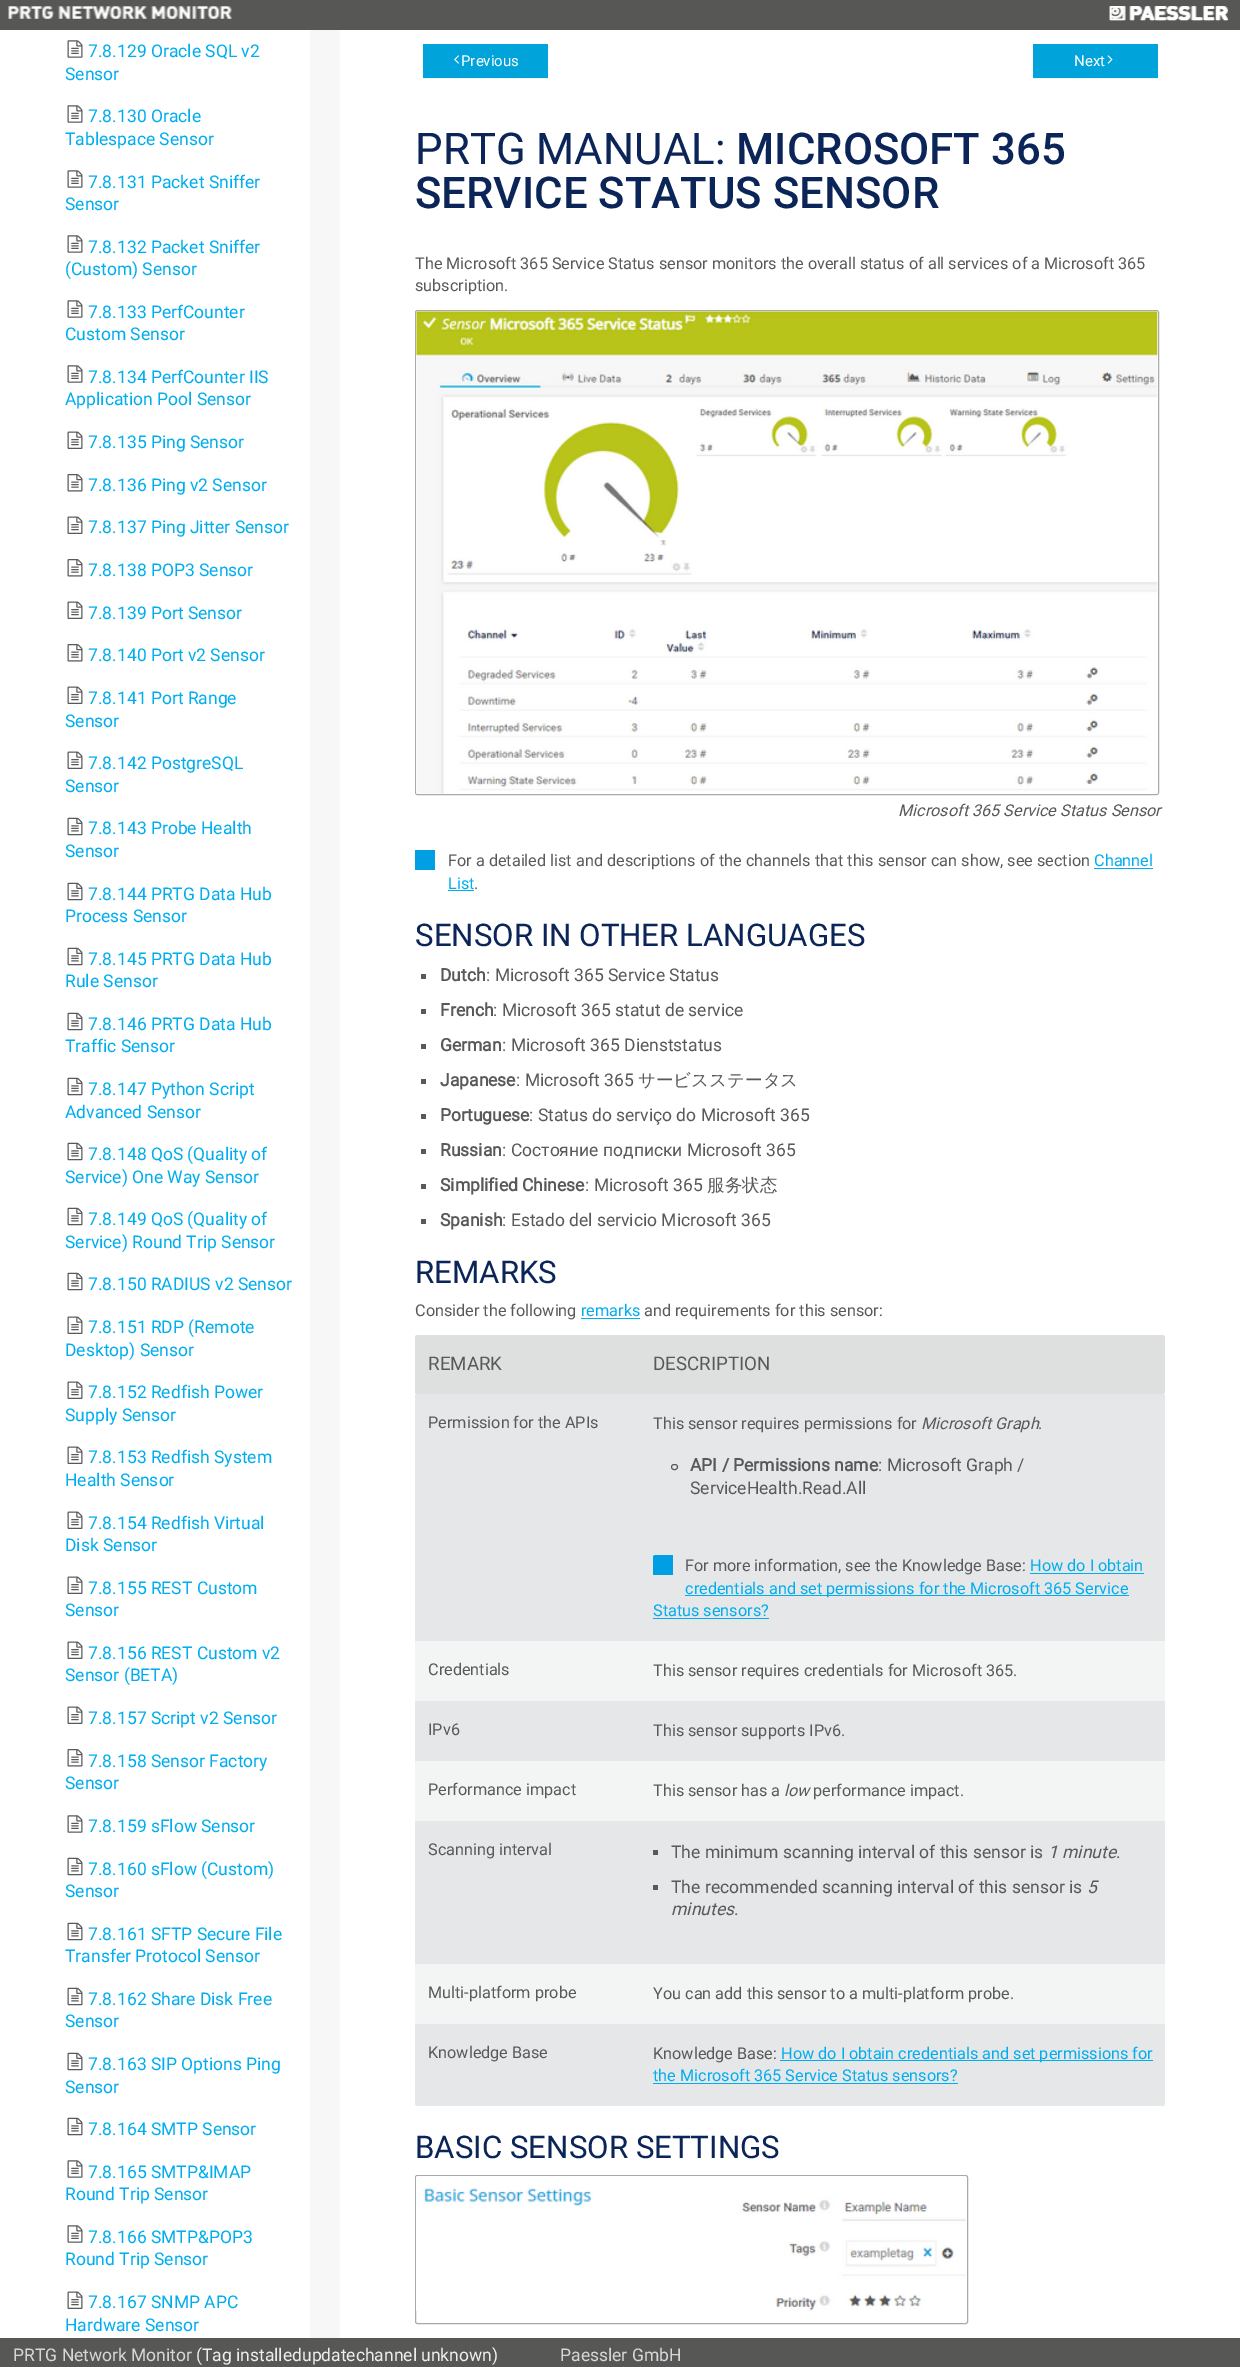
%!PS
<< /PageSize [1240 2367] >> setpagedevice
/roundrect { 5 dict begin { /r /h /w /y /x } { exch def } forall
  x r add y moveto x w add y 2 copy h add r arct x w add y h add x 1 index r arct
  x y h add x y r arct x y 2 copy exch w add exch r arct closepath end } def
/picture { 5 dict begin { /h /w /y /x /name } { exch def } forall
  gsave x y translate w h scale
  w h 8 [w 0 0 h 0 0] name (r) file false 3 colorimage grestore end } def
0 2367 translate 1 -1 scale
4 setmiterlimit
0.969 setgray
0 0 1240 2367 rectfill
0.341 0.341 0.337 setrgbcolor
0 0 1240 30 rectfill
(img1.rgb) 8 6 224 13 picture
(img2.rgb) 1109 6 119 15 picture
(img3.rgb) 1109 6 120 15 picture
1 setgray
0 30 310 2308 rectfill
(img4.rgb) 67 40 16 18 picture
/Roboto-Regular [17.5 0 0 -17.5 0 0] selectfont
0 0.682 0.937 setrgbcolor
88 57 moveto (7.8.129 Oracle SQL v2) show
65 80 moveto (Sensor) show
(img4.rgb) 67 105 16 18 picture
88 122 moveto (7.8.130 Oracle) show
65 145 moveto (Tablespace Sensor) show
(img4.rgb) 67 170 16 18 picture
88 188 moveto (7.8.131 Packet Sniffer) show
65 210 moveto (Sensor) show
(img4.rgb) 67 235 16 18 picture
88 253 moveto (7.8.132 Packet Sniffer) show
65 275 moveto (\(Custom\) Sensor) show
(img4.rgb) 67 300 16 18 picture
88 318 moveto (7.8.133 PerfCounter) show
65 340 moveto (Custom Sensor) show
(img4.rgb) 67 365 16 18 picture
88 383 moveto (7.8.134 PerfCounter IIS) show
65 405 moveto (Application Pool Sensor) show
(img5.rgb) 67 431 16 18 picture
88 448 moveto (7.8.135 Ping Sensor) show
(img6.rgb) 67 474 16 18 picture
88 491 moveto (7.8.136 Ping v2 Sensor) show
(img5.rgb) 67 516 16 18 picture
88 533 moveto (7.8.137 Ping Jitter Sensor) show
(img6.rgb) 67 559 16 18 picture
88 576 moveto (7.8.138 POP3 Sensor) show
(img5.rgb) 67 601 16 18 picture
88 619 moveto (7.8.139 Port Sensor) show
(img6.rgb) 67 644 16 18 picture
88 661 moveto (7.8.140 Port v2 Sensor) show
(img5.rgb) 67 686 16 18 picture
88 704 moveto (7.8.141 Port Range) show
65 727 moveto (Sensor) show
(img5.rgb) 67 751 16 18 picture
88 769 moveto (7.8.142 PostgreSQL) show
65 792 moveto (Sensor) show
(img7.rgb) 67 817 16 19 picture
88 834 moveto (7.8.143 Probe Health) show
65 857 moveto (Sensor) show
(img7.rgb) 67 882 16 19 picture
88 900 moveto (7.8.144 PRTG Data Hub) show
65 922 moveto (Process Sensor) show
(img7.rgb) 67 947 16 19 picture
88 965 moveto (7.8.145 PRTG Data Hub) show
65 987 moveto (Rule Sensor) show
(img7.rgb) 67 1012 16 19 picture
88 1030 moveto (7.8.146 PRTG Data Hub) show
65 1052 moveto (Traffic Sensor) show
(img7.rgb) 67 1077 16 19 picture
88 1095 moveto (7.8.147 Python Script) show
65 1118 moveto (Advanced Sensor) show
(img7.rgb) 67 1142 16 19 picture
88 1160 moveto (7.8.148 QoS \(Quality of) show
65 1183 moveto (Service\) One Way Sensor) show
(img7.rgb) 67 1207 16 19 picture
88 1225 moveto (7.8.149 QoS \(Quality of) show
65 1248 moveto (Service\) Round Trip Sensor) show
(img7.rgb) 67 1272 16 19 picture
88 1290 moveto (7.8.150 RADIUS v2 Sensor) show
(img5.rgb) 67 1316 16 18 picture
88 1333 moveto (7.8.151 RDP \(Remote) show
65 1356 moveto (Desktop\) Sensor) show
(img5.rgb) 67 1381 16 18 picture
88 1398 moveto (7.8.152 Redfish Power) show
65 1421 moveto (Supply Sensor) show
(img5.rgb) 67 1446 16 18 picture
88 1463 moveto (7.8.153 Redfish System) show
65 1486 moveto (Health Sensor) show
(img5.rgb) 67 1511 16 18 picture
88 1529 moveto (7.8.154 Redfish Virtual) show
65 1551 moveto (Disk Sensor) show
(img5.rgb) 67 1576 16 18 picture
88 1594 moveto (7.8.155 REST Custom) show
65 1616 moveto (Sensor) show
(img5.rgb) 67 1641 16 18 picture
88 1659 moveto (7.8.156 REST Custom v2) show
65 1681 moveto (Sensor \(BETA\)) show
(img5.rgb) 67 1706 16 18 picture
88 1724 moveto (7.8.157 Script v2 Sensor) show
(img6.rgb) 67 1749 16 18 picture
88 1767 moveto (7.8.158 Sensor Factory) show
65 1789 moveto (Sensor) show
(img4.rgb) 67 1815 16 18 picture
88 1832 moveto (7.8.159 sFlow Sensor) show
(img7.rgb) 67 1857 16 19 picture
88 1875 moveto (7.8.160 sFlow \(Custom\)) show
65 1897 moveto (Sensor) show
(img7.rgb) 67 1922 16 19 picture
88 1940 moveto (7.8.161 SFTP Secure File) show
65 1962 moveto (Transfer Protocol Sensor) show
(img7.rgb) 67 1987 16 19 picture
88 2005 moveto (7.8.162 Share Disk Free) show
65 2027 moveto (Sensor) show
(img7.rgb) 67 2052 16 19 picture
88 2070 moveto (7.8.163 SIP Options Ping) show
65 2093 moveto (Sensor) show
(img7.rgb) 67 2117 16 19 picture
88 2135 moveto (7.8.164 SMTP Sensor) show
(img4.rgb) 67 2160 16 18 picture
88 2178 moveto (7.8.165 SMTP&IMAP) show
65 2200 moveto (Round Trip Sensor) show
(img4.rgb) 67 2225 16 18 picture
88 2243 moveto (7.8.166 SMTP&POP3) show
65 2265 moveto (Round Trip Sensor) show
(img5.rgb) 67 2291 16 18 picture
88 2308 moveto (7.8.167 SNMP APC) show
65 2331 moveto (Hardware Sensor) show
1 setgray
340 30 900 2308 rectfill
0.949 setgray
newpath 423 78 moveto 423 79 lineto 548 79 lineto 548 45 lineto 548 78 lineto closepath fill
0 0.639 0.855 setrgbcolor
423 44 125 34 rectfill
(img8.rgb) 454 55 5 9 picture
/Roboto-Regular [15 0 0 -15 0 0] selectfont
1 setgray
461 66 moveto (Previous) show
0.949 setgray
newpath 1033 78 moveto 1033 79 lineto 1158 79 lineto 1158 45 lineto 1158 78 lineto closepath fill
0 0.639 0.855 setrgbcolor
1033 44 125 34 rectfill
1 setgray
1074 66 moveto (Next) show
(img9.rgb) 1107 55 6 9 picture
/Roboto-Regular [43.75 0 0 -43.75 0 0] selectfont
0.043 0.145 0.345 setrgbcolor
415 164 moveto (PRTG MANUAL:) show
/Roboto-Medium [43.75 0 0 -43.75 0 0] selectfont
736 164 moveto (MICROSOFT 365) show
415 208 moveto (SERVICE STATUS SENSOR) show
/Roboto-Regular [16.25 0 0 -16.25 0 0] selectfont
0.345 0.349 0.357 setrgbcolor
415 269 moveto (The Microsoft 365 Service Status sensor monitors the overall status of all services of a Microsoft 365) show
415 291 moveto (subscription.) show
0.667 setgray
415.5 310.5 743 484 2 roundrect stroke
(img10.rgb) 416 311 742 483 picture
/Roboto-Italic [16.25 0 0 -16.25 0 0] selectfont
0.345 0.349 0.357 setrgbcolor
898 816 moveto (Microsoft 365 Service Status Sensor) show
0 0.624 0.89 setrgbcolor
415 850 20 20 rectfill
/Roboto-Regular [16.25 0 0 -16.25 0 0] selectfont
0.345 0.349 0.357 setrgbcolor
448 866 moveto (For a detailed list and descriptions of the channels that this sensor can show, see section) show
0 0.682 0.937 setrgbcolor
1094 866 moveto (Channel) show
1094 868 59 1 rectfill
448 889 moveto (List) show
448 890 26 1 rectfill
0.345 0.349 0.357 setrgbcolor
474 889 moveto (.) show
/Roboto-Regular [31.25 0 0 -31.25 0 0] selectfont
0.043 0.145 0.345 setrgbcolor
415 946 moveto (SENSOR IN OTHER LANGUAGES) show
0.345 0.349 0.357 setrgbcolor
421 974 5 5 rectfill
/Roboto-Bold [17.5 0 0 -17.5 0 0] selectfont
440 981 moveto (Dutch) show
/Roboto-Regular [17.5 0 0 -17.5 0 0] selectfont
486 981 moveto (: Microsoft 365 Service Status) show
421 1009 5 5 rectfill
/Roboto-Bold [17.5 0 0 -17.5 0 0] selectfont
440 1016 moveto (French) show
/Roboto-Regular [17.5 0 0 -17.5 0 0] selectfont
493 1016 moveto (: Microsoft 365 statut de service) show
421 1044 5 5 rectfill
/Roboto-Bold [17.5 0 0 -17.5 0 0] selectfont
440 1051 moveto (German) show
/Roboto-Regular [17.5 0 0 -17.5 0 0] selectfont
502 1051 moveto (: Microsoft 365 Dienststatus) show
421 1079 5 5 rectfill
/Roboto-Bold [17.5 0 0 -17.5 0 0] selectfont
440 1086 moveto (Japanese) show
/Roboto-Regular [17.5 0 0 -17.5 0 0] selectfont
516 1086 moveto (: Microsoft 365) show
/WenQuanYiZenHei-Medium [17.5 0 0 -17.5 0 0] selectfont
638 1086 moveto (サービスステータス) show
421 1114 5 5 rectfill
/Roboto-Bold [17.5 0 0 -17.5 0 0] selectfont
440 1121 moveto (Portuguese) show
/Roboto-Regular [17.5 0 0 -17.5 0 0] selectfont
529 1121 moveto (: Status do serviço do Microsoft 365) show
421 1149 5 5 rectfill
/Roboto-Bold [17.5 0 0 -17.5 0 0] selectfont
440 1156 moveto (Russian) show
/Roboto-Regular [17.5 0 0 -17.5 0 0] selectfont
502 1156 moveto (: Состояние подписки Microsoft 365) show
421 1184 5 5 rectfill
/Roboto-Bold [17.5 0 0 -17.5 0 0] selectfont
440 1191 moveto (Simplified Chinese) show
/Roboto-Regular [17.5 0 0 -17.5 0 0] selectfont
585 1191 moveto (: Microsoft 365) show
/WenQuanYiZenHei-Medium [17.5 0 0 -17.5 0 0] selectfont
707 1191 moveto (服务状态) show
421 1219 5 5 rectfill
/Roboto-Bold [17.5 0 0 -17.5 0 0] selectfont
440 1226 moveto (Spanish) show
/Roboto-Regular [17.5 0 0 -17.5 0 0] selectfont
502 1226 moveto (: Estado del servicio Microsoft 365) show
/Roboto-Regular [31.25 0 0 -31.25 0 0] selectfont
0.043 0.145 0.345 setrgbcolor
415 1283 moveto (REMARKS) show
/Roboto-Regular [16.25 0 0 -16.25 0 0] selectfont
0.345 0.349 0.357 setrgbcolor
415 1316 moveto (Consider the following) show
0 0.682 0.937 setrgbcolor
581 1316 moveto (remarks) show
581 1318 59 1 rectfill
0.345 0.349 0.357 setrgbcolor
644 1316 moveto (and requirements for this sensor:) show
0.871 0.878 0.878 setrgbcolor
newpath 417.5 1335 moveto 640 1335 lineto 640 1394 lineto 417.5 1394 lineto 416 1394 415 1393 415 1391.5 curveto 415 1337.5 lineto 415 1336 416 1335 417.5 1335 curveto closepath fill
/Roboto-Regular [18.75 0 0 -18.75 0 0] selectfont
0.345 0.349 0.357 setrgbcolor
428 1370 moveto (REMARK) show
0.871 0.878 0.878 setrgbcolor
newpath 640 1335 moveto 1162.5 1335 lineto 1164 1335 1165 1336 1165 1337.5 curveto 1165 1391.5 lineto 1165 1393 1164 1394 1162.5 1394 curveto 640 1394 lineto closepath fill
0.345 0.349 0.357 setrgbcolor
653 1370 moveto (DESCRIPTION) show
0.902 0.906 0.91 setrgbcolor
newpath 417.5 1394 moveto 640 1394 lineto 640 1641 lineto 415 1641 lineto 415 1396.5 lineto 415 1395 416 1394 417.5 1394 curveto closepath fill
/Roboto-Regular [16.25 0 0 -16.25 0 0] selectfont
0.345 0.349 0.357 setrgbcolor
428 1428 moveto (Permission for the APIs) show
0.902 0.906 0.91 setrgbcolor
newpath 640 1394 moveto 1162.5 1394 lineto 1164 1394 1165 1395 1165 1396.5 curveto 1165 1641 lineto 640 1641 lineto closepath fill
0.345 0.349 0.357 setrgbcolor
653 1429 moveto (This sensor requires permissions for) show
/Roboto-Italic [16.25 0 0 -16.25 0 0] selectfont
921 1429 moveto (Microsoft Graph) show
/Roboto-Regular [16.25 0 0 -16.25 0 0] selectfont
1038 1429 moveto (.) show
671.5 1464.5 6 5 2.5 roundrect stroke
/Roboto-Bold [17.5 0 0 -17.5 0 0] selectfont
690 1471 moveto (API / Permissions name) show
/Roboto-Regular [17.5 0 0 -17.5 0 0] selectfont
878 1471 moveto (: Microsoft Graph /) show
690 1494 moveto (ServiceHealth.Read.All) show
0 0.624 0.89 setrgbcolor
newpath 655.5 1555 moveto 673 1555 lineto 673 1575 lineto 653 1575 lineto 653 1557.5 lineto 653 1556 654 1555 655.5 1555 curveto closepath fill
/Roboto-Regular [16.25 0 0 -16.25 0 0] selectfont
0.345 0.349 0.357 setrgbcolor
685 1571 moveto (For more information, see the Knowledge Base:) show
0 0.682 0.937 setrgbcolor
1030 1571 moveto (How do I obtain) show
1030 1573 114 1 rectfill
685 1595 444 1 rectfill
685 1594 moveto (credentials and set permissions for the Microsoft 365 Service) show
653 1616 moveto (Status sensors?) show
653 1618 116 1 rectfill
0.953 0.957 0.957 setrgbcolor
415 1641 750 60 rectfill
0.345 0.349 0.357 setrgbcolor
428 1675 moveto (Credentials) show
653 1676 moveto (This sensor requires credentials for Microsoft 365.) show
0.902 0.906 0.91 setrgbcolor
415 1701 750 60 rectfill
0.345 0.349 0.357 setrgbcolor
428 1735 moveto (IPv6) show
653 1736 moveto (This sensor supports IPv6.) show
0.953 0.957 0.957 setrgbcolor
415 1761 750 60 rectfill
0.345 0.349 0.357 setrgbcolor
428 1795 moveto (Performance impact) show
653 1796 moveto (This sensor has a) show
/Roboto-Italic [16.25 0 0 -16.25 0 0] selectfont
784 1796 moveto (low) show
/Roboto-Regular [16.25 0 0 -16.25 0 0] selectfont
813 1796 moveto (performance impact.) show
0.902 0.906 0.91 setrgbcolor
415 1821 750 143 rectfill
0.345 0.349 0.357 setrgbcolor
428 1855 moveto (Scanning interval) show
653 1850 5 5 rectfill
/Roboto-Regular [17.5 0 0 -17.5 0 0] selectfont
671 1858 moveto (The minimum scanning interval of this sensor is) show
/Roboto-Italic [17.5 0 0 -17.5 0 0] selectfont
1048 1858 moveto (1 minute) show
/Roboto-Regular [17.5 0 0 -17.5 0 0] selectfont
1116 1858 moveto (.) show
653 1885 5 5 rectfill
671 1893 moveto (The recommended scanning interval of this sensor is) show
/Roboto-Italic [17.5 0 0 -17.5 0 0] selectfont
1087 1893 moveto (5) show
671 1915 moveto (minutes) show
/Roboto-Regular [17.5 0 0 -17.5 0 0] selectfont
734 1915 moveto (.) show
0.953 0.957 0.957 setrgbcolor
415 1964 750 60 rectfill
/Roboto-Regular [16.25 0 0 -16.25 0 0] selectfont
0.345 0.349 0.357 setrgbcolor
428 1998 moveto (Multi-platform probe) show
653 1999 moveto (You can add this sensor to a multi-platform probe.) show
0.902 0.906 0.91 setrgbcolor
newpath 415 2024 moveto 640 2024 lineto 640 2106 lineto 417.5 2106 lineto 416 2106 415 2105 415 2103.5 curveto closepath fill
0.345 0.349 0.357 setrgbcolor
428 2058 moveto (Knowledge Base) show
0.902 0.906 0.91 setrgbcolor
newpath 640 2024 moveto 1165 2024 lineto 1165 2103.5 lineto 1165 2105 1164 2106 1162.5 2106 curveto 640 2106 lineto closepath fill
0.345 0.349 0.357 setrgbcolor
653 2059 moveto (Knowledge Base:) show
0 0.682 0.937 setrgbcolor
780 2060 373 1 rectfill
781 2059 moveto (How do I obtain credentials and set permissions for) show
653 2081 moveto (the Microsoft 365 Service Status sensors?) show
653 2083 305 1 rectfill
/Roboto-Regular [31.25 0 0 -31.25 0 0] selectfont
0.043 0.145 0.345 setrgbcolor
415 2158 moveto (BASIC SENSOR SETTINGS) show
0.667 setgray
415.5 2175.5 552 148 2 roundrect stroke
(img11.rgb) 416 2176 550 135 picture
0.341 0.341 0.337 setrgbcolor
0 2338 1240 29 rectfill
/Roboto-Regular [17.5 0 0 -17.5 0 0] selectfont
0.839 0.843 0.847 setrgbcolor
13 2361 moveto (PRTG Network Monitor) show
0.937 0.933 0.933 setrgbcolor
196 2361 moveto (\(Tag installedupdatechannel unknown\)) show
0.839 0.843 0.847 setrgbcolor
560 2361 moveto (Paessler GmbH) show
showpage
